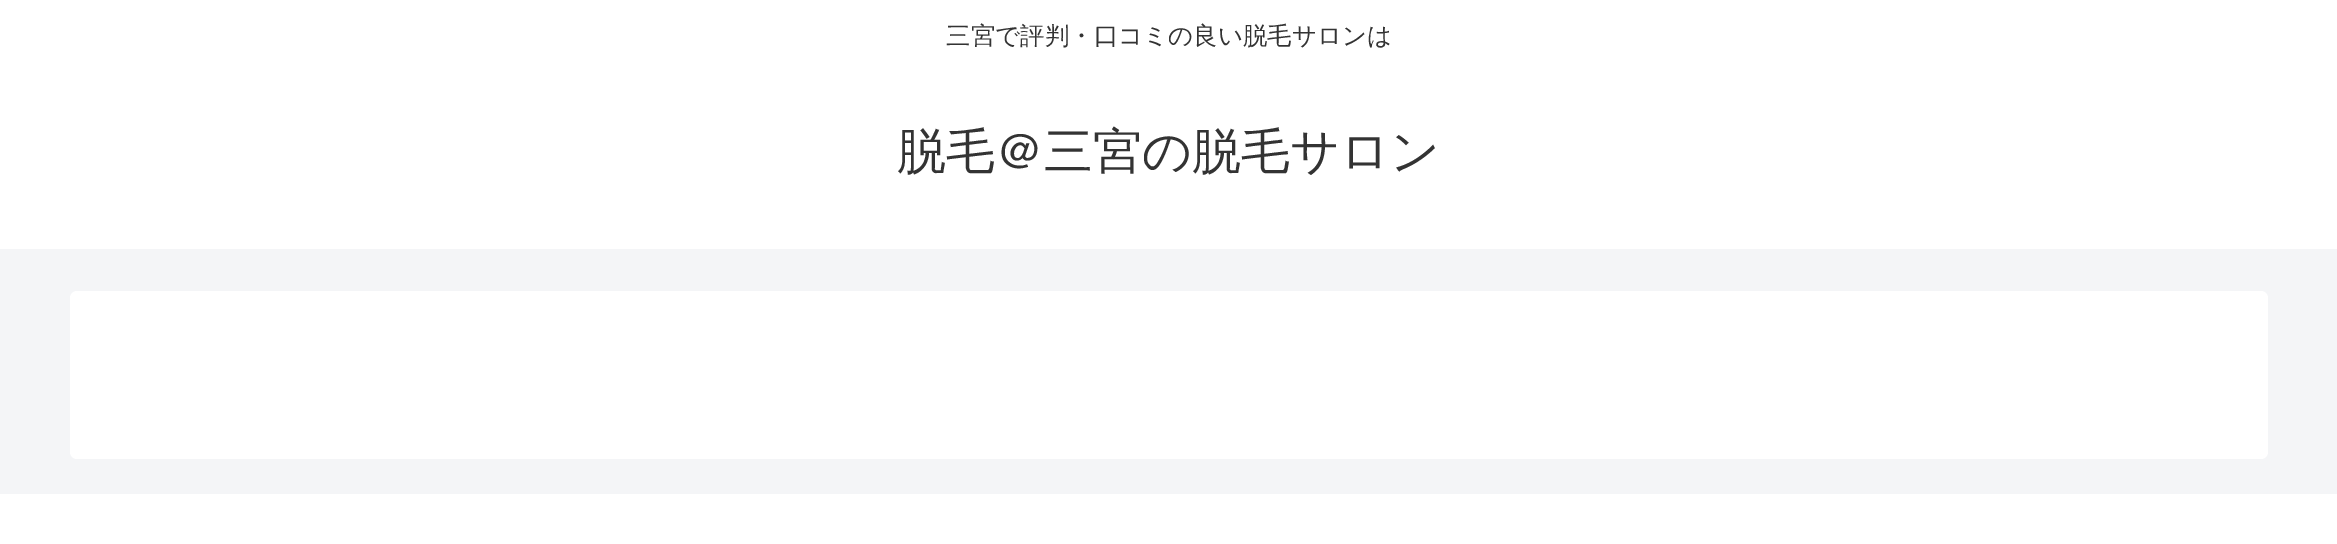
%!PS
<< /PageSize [2337 544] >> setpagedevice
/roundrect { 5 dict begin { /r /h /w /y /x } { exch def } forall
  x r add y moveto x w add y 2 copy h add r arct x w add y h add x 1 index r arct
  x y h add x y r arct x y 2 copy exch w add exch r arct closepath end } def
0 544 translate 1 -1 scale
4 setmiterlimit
0.957 0.961 0.969 setrgbcolor
0 0 2337 544 rectfill
1 setgray
0 0 2337 249 rectfill
/WenQuanYiZenHei-Medium [24.5 0 0 -24.5 0 0] selectfont
0.2 setgray
946 44 moveto (三宮で評判・口コミの良い脱毛サロンは) show
/WenQuanYiZenHei-Medium [49 0 0 -49 0 0] selectfont
897 168 moveto (脱毛＠三宮の脱毛サロン) show
1 setgray
70 291 2198 168 7 roundrect fill
0 494 2337 50 rectfill
showpage
